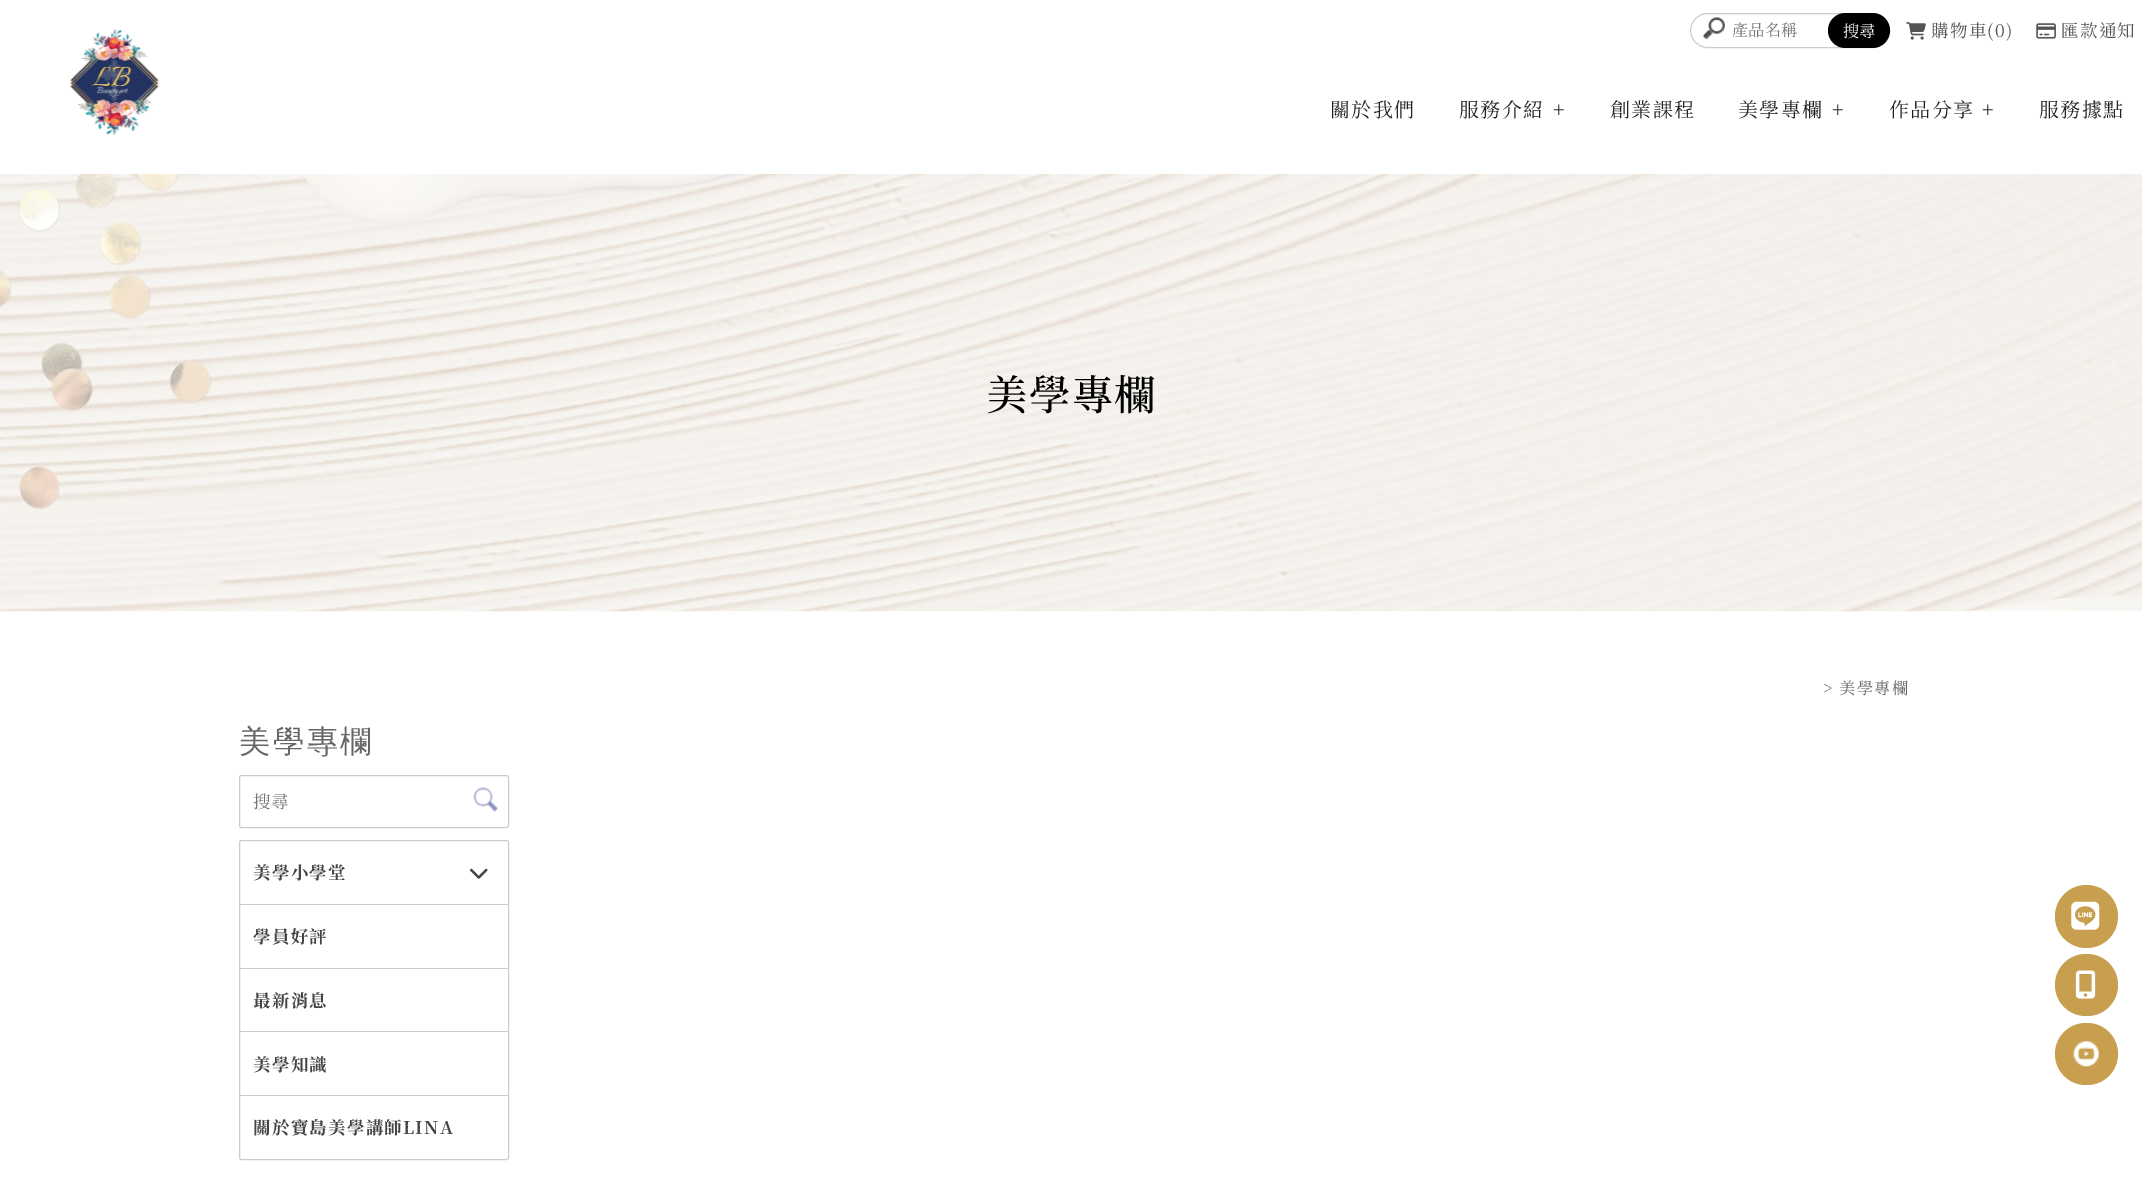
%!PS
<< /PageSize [2142 1203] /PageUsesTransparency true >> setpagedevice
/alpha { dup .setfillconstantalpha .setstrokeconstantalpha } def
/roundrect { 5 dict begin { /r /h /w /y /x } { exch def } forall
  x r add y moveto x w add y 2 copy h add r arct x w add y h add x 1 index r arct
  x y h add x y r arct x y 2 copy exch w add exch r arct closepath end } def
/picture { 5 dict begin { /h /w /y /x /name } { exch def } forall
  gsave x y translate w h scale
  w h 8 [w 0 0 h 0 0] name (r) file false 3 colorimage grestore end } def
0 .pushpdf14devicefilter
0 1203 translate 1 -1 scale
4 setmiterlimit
1 setgray
0 0 2142 1203 rectfill
(img5.rgb) 0 173 2142 439 picture
0.94 alpha
0 173 2142 1 rectfill
1 alpha
(img1.rgb) 69 29 91 106 picture
(img2.rgb) 1702 17 23 23 picture
0.8 setgray
1690.5 13.5 199 34 17 roundrect stroke
/NotoSerifTC-Regular [16.25 0 0 -16.25 0 0] selectfont
0.459 setgray
1732 36 moveto (產品名稱) show
0 setgray
1828 13 62 35 17.5 roundrect fill
1 setgray
1843 37 moveto (搜尋) show
(img3.rgb) 1906 22 20 18 picture
/NotoSerifTC-Regular [17.5 0 0 -17.5 0 0] selectfont
0.333 setgray
1931 37 moveto 1.25 0 (購物車\(0\)) ashow
(img4.rgb) 2036 23 20 16 picture
2061 37 moveto 1.25 0 (匯款通知) ashow
/NotoSerifTC-Regular [20 0 0 -20 0 0] selectfont
0.133 setgray
1330 117 moveto 1.25 0 (關於我們) ashow
1459 117 moveto 1.25 0 (服務介紹) ashow
1553 117 moveto 1.25 0 (+) ashow
1610 117 moveto 1.25 0 (創業課程) ashow
1738 117 moveto 1.25 0 (美學專欄) ashow
1832 117 moveto 1.25 0 (+) ashow
1889 117 moveto 1.25 0 (作品分享) ashow
1982 117 moveto 1.25 0 (+) ashow
2039 117 moveto 1.25 0 (服務據點) ashow
/NotoSerifTC-Medium [41.5 0 0 -41.5 0 0] selectfont
0 setgray
986 410 moveto 1.25 0 (美學專欄) ashow
/NotoSerifTC-Regular [16.25 0 0 -16.25 0 0] selectfont
0.4 setgray
1823 694 moveto 1.25 0 (> 美學專欄) ashow
/WenQuanYiZenHei-Medium [31.25 0 0 -31.25 0 0] selectfont
239 752 moveto 2.5 0 (美學專欄) ashow
0.8 setgray
239.5 775.5 269 52 2 roundrect stroke
/NotoSerifTC-Regular [17.5 0 0 -17.5 0 0] selectfont
0.459 setgray
253 808 moveto (搜尋) show
(img6.rgb) 473 787 25 25 picture
0.8 setgray
239.5 840.5 269 319 2 roundrect stroke
/NotoSerifTC-Bold [17.5 0 0 -17.5 0 0] selectfont
0.267 setgray
253 879 moveto 1.25 0 (美學小學堂) ashow
(img7.rgb) 470 868 18 11 picture
0.8 setgray
240 904 268 1 rectfill
0.267 setgray
253 943 moveto 1.25 0 (學員好評) ashow
0.8 setgray
240 968 268 1 rectfill
0.267 setgray
253 1007 moveto 1.25 0 (最新消息) ashow
0.8 setgray
240 1031 268 1 rectfill
0.267 setgray
253 1071 moveto 1.25 0 (美學知識) ashow
0.8 setgray
240 1095 268 1 rectfill
0.267 setgray
253 1134 moveto 1.25 0 (關於寶島美學講師LINA) ashow
0.78 0.624 0.306 setrgbcolor
newpath 2086.5 916.5 31.5 0 360 arc closepath fill
(img8.rgb) 2071 901 29 29 picture
2055 954 63 62 31 roundrect fill
(img9.rgb) 2075 970 21 29 picture
2055 1023 63 62 31 roundrect fill
(img10.rgb) 2073 1041 26 26 picture
.poppdf14devicefilter showpage
